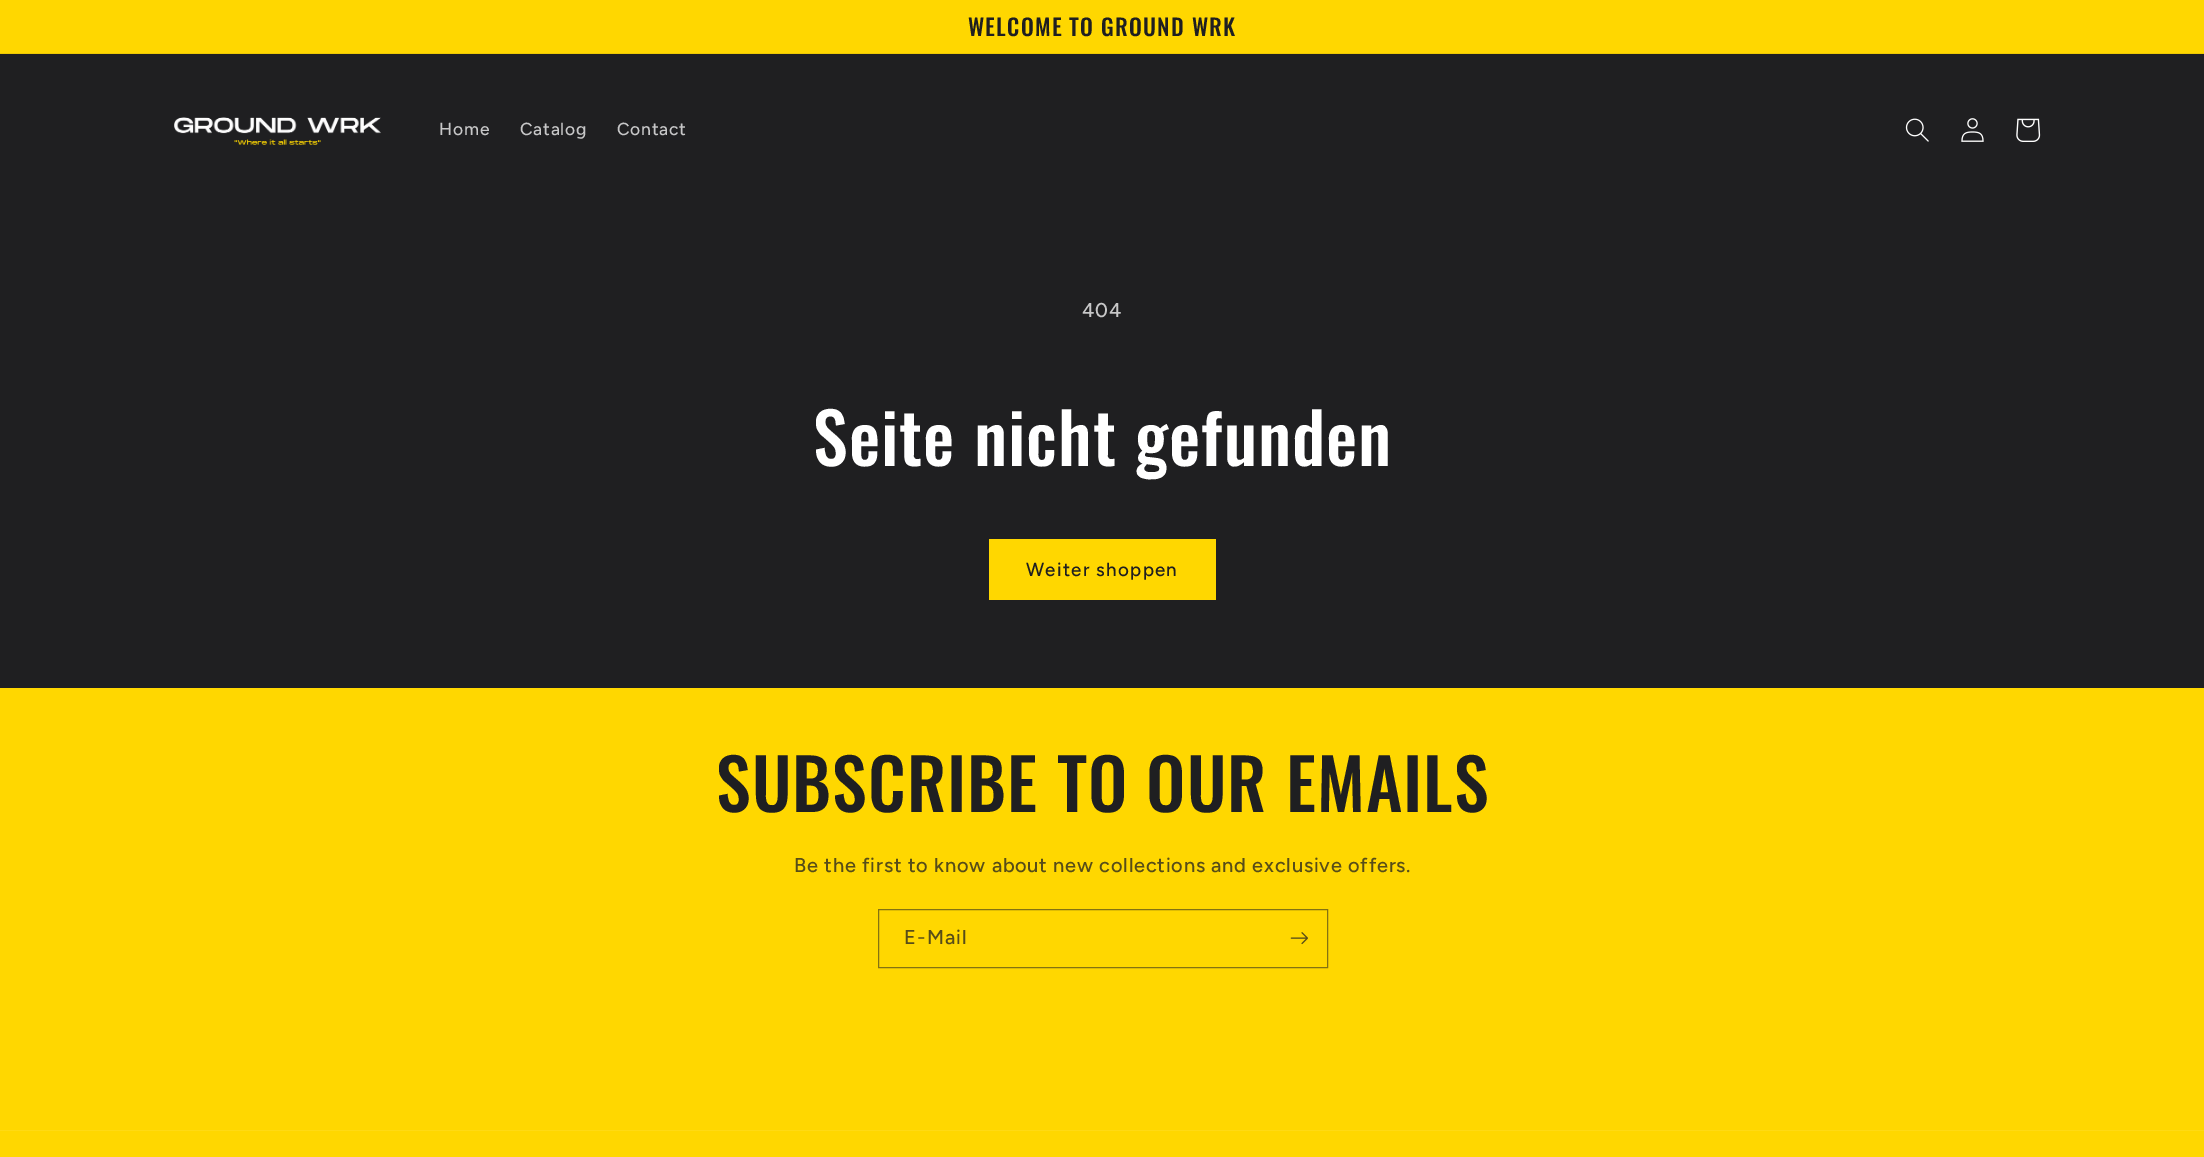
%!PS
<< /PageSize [2204 1157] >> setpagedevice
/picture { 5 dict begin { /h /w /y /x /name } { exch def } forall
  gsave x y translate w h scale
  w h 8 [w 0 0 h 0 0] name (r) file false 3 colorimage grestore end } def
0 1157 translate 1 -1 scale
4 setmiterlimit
0.122 0.122 0.129 setrgbcolor
0 0 2204 1157 rectfill
1 0.843 0 setrgbcolor
0 0 2204 53 rectfill
0.929 0.784 0.012 setrgbcolor
0 53 2204 1 rectfill
/Oswald-Medium [22.75 0 0 -22.75 0 0] selectfont
0.122 0.122 0.129 setrgbcolor
968 36 moveto 1.25 0 (WELCOME TO GROUND WRK) ashow
(img1.rgb) 174 117 207 28 picture
/Figtree-Medium [17.5 0 0 -17.5 0 0] selectfont
0.78 0.78 0.784 setrgbcolor
439 135 moveto 0.75 0 (Home) ashow
520 135 moveto 0.75 0 (Catalog) ashow
617 135 moveto 0.75 0 (Contact) ashow
(img2.rgb) 1905 118 24 24 picture
(img3.rgb) 1961 118 23 24 picture
(img4.rgb) 2016 118 25 24 picture
/Figtree-Medium [20 0 0 -20 0 0] selectfont
1082 317 moveto 0.75 0 (404) ashow
/Oswald-Medium [70 0 0 -70 0 0] selectfont
1 setgray
813 466 moveto 1.05 0 (Seite nicht gefunden) ashow
1 0.843 0 setrgbcolor
989 539 227 61 rectfill
/Figtree-Medium [18.75 0 0 -18.75 0 0] selectfont
0.122 0.122 0.129 setrgbcolor
1026 576 moveto 1.25 0 (Weiter shoppen) ashow
1 0.843 0 setrgbcolor
0 688 2204 469 rectfill
/Oswald-Medium [70 0 0 -70 0 0] selectfont
0.122 0.122 0.129 setrgbcolor
716 812 moveto 1.05 0 (SUBSCRIBE TO OUR EMAILS) ashow
/Figtree-Medium [20 0 0 -20 0 0] selectfont
0.341 0.302 0.098 setrgbcolor
794 872 moveto 0.75 0 (Be the first to know about new collections and exclusive offers.) ashow
0.518 0.447 0.071 setrgbcolor
878.5 909.5 449 58 rectstroke
0.341 0.302 0.098 setrgbcolor
904 944 moveto 1.25 0 (E-Mail) ashow
(img5.rgb) 1290 932 18 13 picture
1 0.855 0.078 setrgbcolor
0 1130 2204 1 rectfill
showpage
